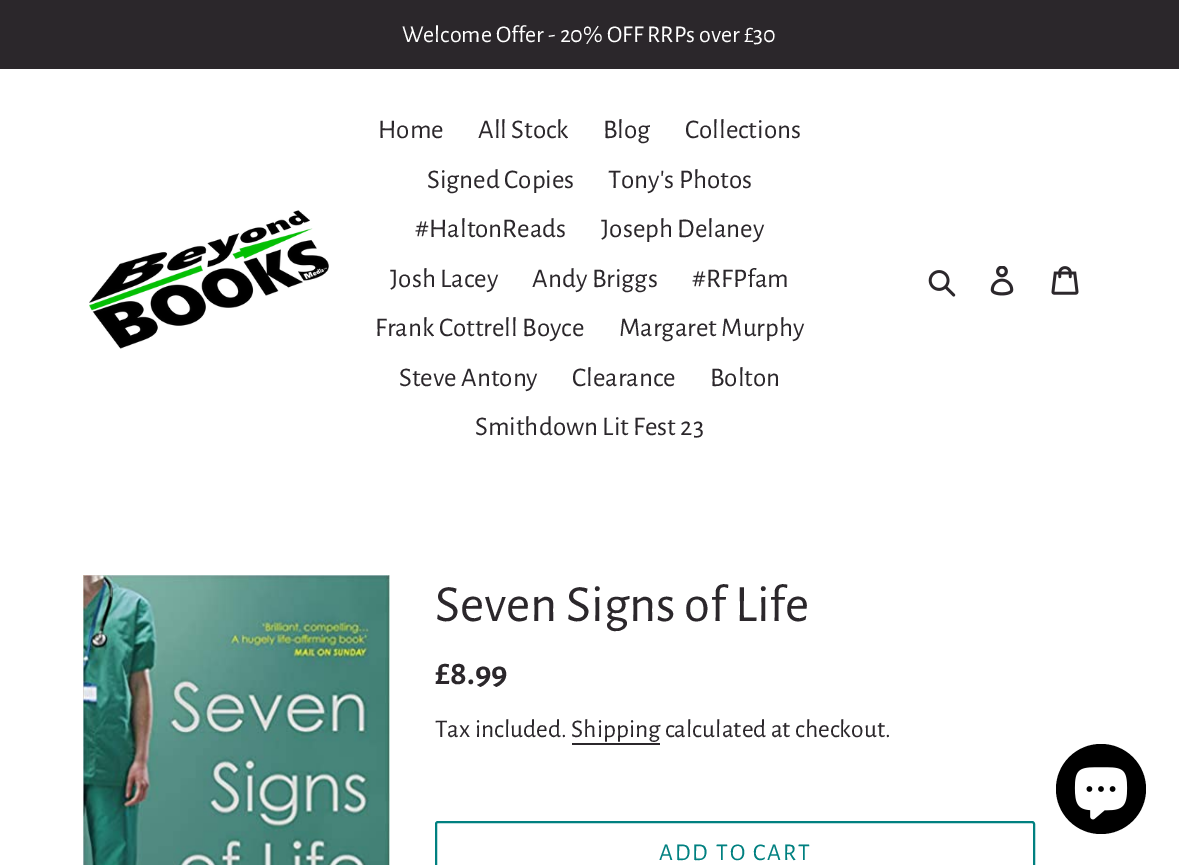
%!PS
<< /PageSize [1179 865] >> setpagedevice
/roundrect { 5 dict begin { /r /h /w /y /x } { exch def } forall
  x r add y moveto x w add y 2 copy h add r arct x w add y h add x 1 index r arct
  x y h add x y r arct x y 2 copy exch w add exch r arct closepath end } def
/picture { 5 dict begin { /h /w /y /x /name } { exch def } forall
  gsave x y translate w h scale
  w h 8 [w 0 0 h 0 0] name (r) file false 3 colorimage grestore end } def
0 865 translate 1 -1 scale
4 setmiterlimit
1 setgray
0 0 1179 865 rectfill
0.169 0.153 0.169 setrgbcolor
0 0 1179 69 rectfill
/AlegreyaSans-Regular [24 0 0 -24 0 0] selectfont
1 setgray
402 42 moveto (Welcome Offer - 20% OFF RRPs over £30) show
(img1.rgb) 89 210 240 139 picture
/AlegreyaSans-Regular [27 0 0 -27 0 0] selectfont
0.169 0.153 0.169 setrgbcolor
378 138 moveto (Home) show
478 138 moveto (All Stock) show
603 138 moveto (Blog) show
685 138 moveto (Collections) show
427 188 moveto (Signed Copies) show
608 188 moveto (Tony's Photos) show
415 237 moveto (#HaltonReads) show
601 237 moveto (Joseph Delaney) show
390 287 moveto (Josh Lacey) show
532 287 moveto (Andy Briggs) show
692 287 moveto (#RFPfam) show
375 336 moveto (Frank Cottrell Boyce) show
619 336 moveto (Margaret Murphy) show
399 386 moveto (Steve Antony) show
572 386 moveto (Clearance) show
710 386 moveto (Bolton) show
475 435 moveto (Smithdown Lit Fest 23) show
(img2.rgb) 928 270 28 27 picture
(img3.rgb) 990 266 24 30 picture
(img4.rgb) 1051 266 28 29 picture
(img5.rgb) 83 575 307 290 picture
/AlegreyaSans-Regular [52.5 0 0 -52.5 0 0] selectfont
435 621 moveto (Seven Signs of Life) show
/AlegreyaSans-Bold [34 0 0 -34 0 0] selectfont
435 684 moveto (£8.99) show
/AlegreyaSans-Regular [25.5 0 0 -25.5 0 0] selectfont
435 737 moveto (Tax included. Shipping calculated at checkout.) show
572 743 88 2 rectfill
0 0.502 0.502 setrgbcolor
2 setlinewidth
436 822 598 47 2 roundrect stroke
/AlegreyaSans-Regular [24 0 0 -24 0 0] selectfont
659 860 moveto 2 0 (ADD TO CART) ashow
0 setgray
newpath 1101 789 45 0 360 arc closepath fill
(img6.rgb) 1074 767 54 53 picture
showpage
